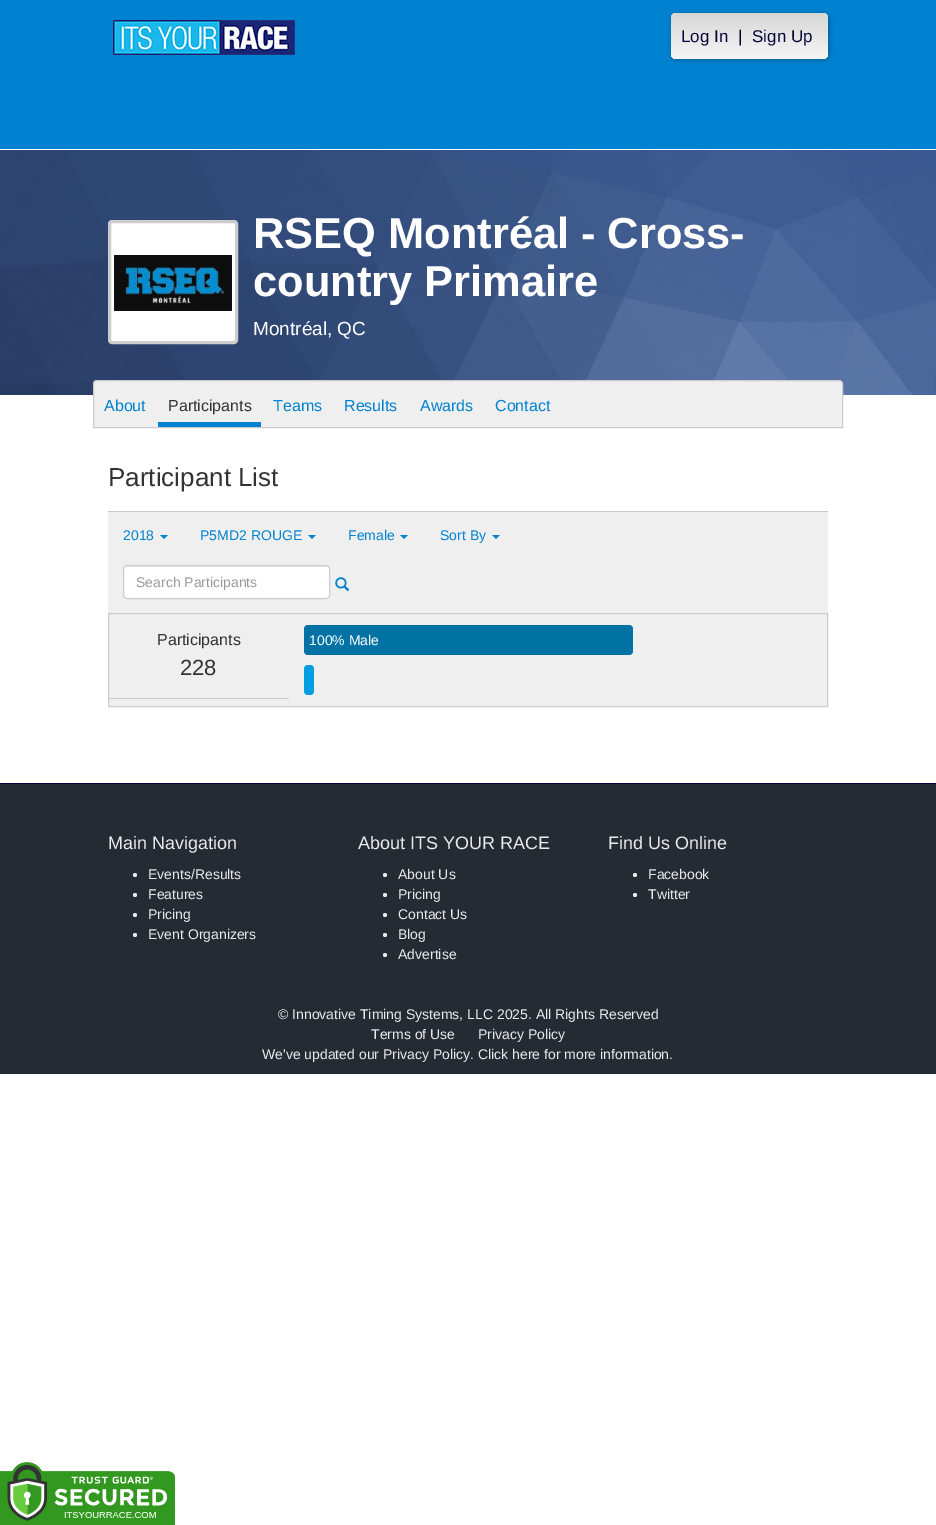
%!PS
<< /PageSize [936 1525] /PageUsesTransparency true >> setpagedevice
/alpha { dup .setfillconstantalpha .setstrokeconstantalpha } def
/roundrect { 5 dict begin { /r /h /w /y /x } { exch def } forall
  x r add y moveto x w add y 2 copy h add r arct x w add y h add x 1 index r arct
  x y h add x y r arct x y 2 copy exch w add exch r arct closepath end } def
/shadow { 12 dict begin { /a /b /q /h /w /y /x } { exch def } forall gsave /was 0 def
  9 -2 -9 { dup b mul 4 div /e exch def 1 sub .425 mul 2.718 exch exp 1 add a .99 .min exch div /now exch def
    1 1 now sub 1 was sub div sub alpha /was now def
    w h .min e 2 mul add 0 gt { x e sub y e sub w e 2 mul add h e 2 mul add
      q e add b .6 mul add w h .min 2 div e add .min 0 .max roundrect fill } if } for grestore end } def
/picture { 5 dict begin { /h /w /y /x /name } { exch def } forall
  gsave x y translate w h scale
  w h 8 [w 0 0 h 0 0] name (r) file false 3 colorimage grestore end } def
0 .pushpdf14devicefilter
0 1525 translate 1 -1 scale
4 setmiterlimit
1 setgray
0 0 936 1525 rectfill
0 0.51 0.816 setrgbcolor
0 0 936 149 rectfill
(img1.rgb) 113 20 182 35 picture
0 setgray
672 14 157 46 5 2.5 0.3 shadow
gsave 671 13 157 46 5 roundrect clip newpath
<< /ShadingType 2 /ColorSpace /DeviceRGB /Coords [750 13 750 59] /Extend [true true] /Function << /FunctionType 2 /Domain [0 1] /C0 [0.839 0.839 0.839] /C1 [0.965 0.965 0.965] /N 1 >> >> shfill grestore
/LiberationSans-Regular [17 0 0 -17 0 0] selectfont
0.016 0.016 0.22 setrgbcolor
681 42 moveto (Log In) show
738 42 moveto (|) show
752 42 moveto (Sign Up) show
(img2.rgb) 0 150 936 245 picture
1 setgray
109.5 221.5 127 121 2.5 roundrect gsave fill grestore
0.8 setgray
3 setlinewidth
stroke
(img3.rgb) 114 255 118 56 picture
/LiberationSans-Bold [43.4 0 0 -43.4 0 0] selectfont
1 setgray
253 248 moveto (RSEQ Montréal - Cross-) show
253 296 moveto (country Primaire) show
/LiberationSans-Regular [19 0 0 -19 0 0] selectfont
253 335 moveto (Montréal, QC) show
0.937 setgray
newpath 97 380.5 moveto 839 380.5 lineto 841 380.5 842.5 382 842.5 384 curveto 842.5 427.5 lineto 93.5 427.5 lineto 93.5 384 lineto 93.5 382 95 380.5 97 380.5 curveto closepath gsave fill grestore
0.8 setgray
1 setlinewidth
stroke
/LiberationSans-Regular [16 0 0 -16 0 0] selectfont
0 0.51 0.816 setrgbcolor
104 411 moveto (About) show
158 422 103 5 rectfill
0.2 setgray
168 411 moveto (Participants) show
0 0.51 0.816 setrgbcolor
273 411 moveto (Teams) show
344 411 moveto (Results) show
420 411 moveto (Awards) show
495 411 moveto (Contact) show
/LiberationSans-Regular [26 0 0 -26 0 0] selectfont
0.2 setgray
108 486 moveto (Participant List) show
0.937 setgray
108 512 720 101 rectfill
0.8 setgray
108 511 720 1 rectfill
/LiberationSans-Regular [14 0 0 -14 0 0] selectfont
0 0.51 0.816 setrgbcolor
123 540 moveto (2018) show
newpath 160 535 moveto 168 535 lineto 164 539 lineto closepath fill
200 540 moveto (P5MD2 ROUGE) show
newpath 308 535 moveto 316 535 lineto 312 539 lineto closepath fill
348 540 moveto (Female) show
newpath 400 535 moveto 408 535 lineto 404 539 lineto closepath fill
440 540 moveto (Sort By) show
newpath 492 535 moveto 500 535 lineto 496 539 lineto closepath fill
1 setgray
123 565 207 34 4 roundrect fill
0.925 setgray
newpath 127 567 moveto 326 567 lineto 328 567 329 568 329 570 curveto 329 568 328 566 326 566 curveto 127 566 lineto 125 566 124 568 124 570 curveto 124 568 125 567 127 567 curveto closepath fill
0.8 setgray
123.5 565.5 206 33 3.5 roundrect stroke
0.6 setgray
136 587 moveto (Search Participants) show
(img4.rgb) 335 577 15 15 picture
0.937 setgray
newpath 108.5 613.5 moveto 827.5 613.5 lineto 827.5 706.5 lineto 108.5 706.5 lineto closepath gsave fill grestore
0.8 setgray
stroke
109 698 180 1 rectfill
/LiberationSans-Regular [16 0 0 -16 0 0] selectfont
0.2 setgray
157 645 moveto (Participants) show
/LiberationSans-Regular [22 0 0 -22 0 0] selectfont
180 675 moveto (228) show
0 0.447 0.639 setrgbcolor
304 625 329 30 4 roundrect fill
/LiberationSans-Regular [14 0 0 -14 0 0] selectfont
1 setgray
309 645 moveto (100% Male) show
0 0.62 0.89 setrgbcolor
304 665 10 30 4 roundrect fill
0.141 0.169 0.2 setrgbcolor
0 784 936 290 rectfill
0.016 0.016 0.22 setrgbcolor
0 783 936 1 rectfill
/LiberationSans-Regular [18 0 0 -18 0 0] selectfont
0.918 setgray
108 849 moveto (Main Navigation) show
newpath 135 875 2 0 360 arc closepath fill
/LiberationSans-Regular [14 0 0 -14 0 0] selectfont
148 879 moveto (Events/Results) show
newpath 135 895 2 0 360 arc closepath fill
148 899 moveto (Features) show
newpath 135 915 2 0 360 arc closepath fill
148 919 moveto (Pricing) show
newpath 135 935 2 0 360 arc closepath fill
148 939 moveto (Event Organizers) show
/LiberationSans-Regular [18 0 0 -18 0 0] selectfont
358 849 moveto (About ITS YOUR RACE) show
newpath 385 875 2 0 360 arc closepath fill
/LiberationSans-Regular [14 0 0 -14 0 0] selectfont
398 879 moveto (About Us) show
newpath 385 895 2 0 360 arc closepath fill
398 899 moveto (Pricing) show
newpath 385 915 2 0 360 arc closepath fill
398 919 moveto (Contact Us) show
newpath 385 935 2 0 360 arc closepath fill
398 939 moveto (Blog) show
newpath 385 955 2 0 360 arc closepath fill
398 959 moveto (Advertise) show
/LiberationSans-Regular [18 0 0 -18 0 0] selectfont
608 849 moveto (Find Us Online) show
newpath 635 875 2 0 360 arc closepath fill
/LiberationSans-Regular [14 0 0 -14 0 0] selectfont
648 879 moveto (Facebook) show
newpath 635 895 2 0 360 arc closepath fill
648 899 moveto (Twitter) show
278 1019 moveto (© Innovative Timing Systems, LLC 2025. All Rights Reserved) show
371 1039 moveto (Terms of Use) show
478 1039 moveto (Privacy Policy) show
262 1059 moveto (We've updated our Privacy Policy. Click here for more information.) show
(img5.rgb) 0 1462 175 63 picture
.poppdf14devicefilter showpage
